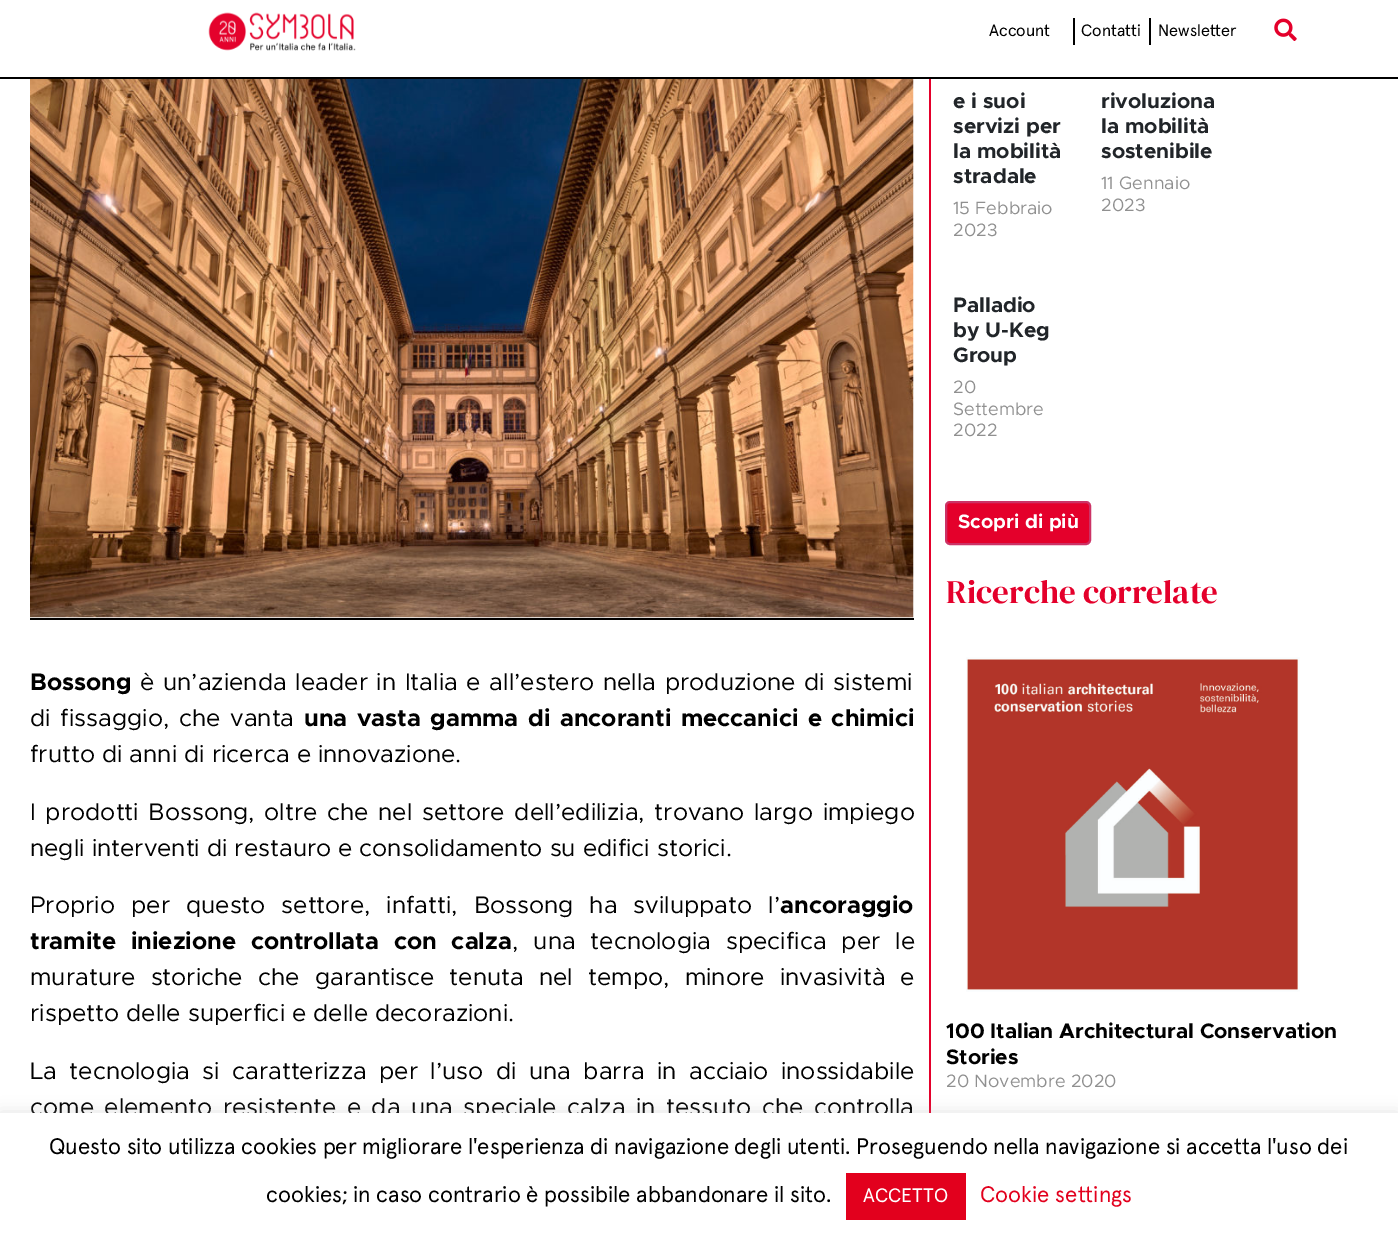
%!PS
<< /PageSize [1398 1244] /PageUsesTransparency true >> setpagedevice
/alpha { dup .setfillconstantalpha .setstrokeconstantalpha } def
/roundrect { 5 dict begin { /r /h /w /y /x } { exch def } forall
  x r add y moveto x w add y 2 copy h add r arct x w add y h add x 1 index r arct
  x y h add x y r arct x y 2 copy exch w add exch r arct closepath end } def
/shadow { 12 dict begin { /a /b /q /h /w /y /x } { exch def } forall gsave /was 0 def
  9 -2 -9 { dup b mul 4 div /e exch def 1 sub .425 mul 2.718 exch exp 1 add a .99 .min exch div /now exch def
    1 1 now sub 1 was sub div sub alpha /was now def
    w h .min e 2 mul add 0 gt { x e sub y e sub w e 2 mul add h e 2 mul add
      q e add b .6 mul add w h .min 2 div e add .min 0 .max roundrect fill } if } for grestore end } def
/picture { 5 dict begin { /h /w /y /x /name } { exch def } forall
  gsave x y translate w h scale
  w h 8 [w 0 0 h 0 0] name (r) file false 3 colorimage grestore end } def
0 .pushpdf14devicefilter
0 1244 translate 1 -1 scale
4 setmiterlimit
1 setgray
0 0 1398 1244 rectfill
0 setgray
0 77 1398 2 rectfill
(img1.rgb) 208 12 148 39 picture
/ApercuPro-Regular [16.5 0 0 -16.5 0 0] selectfont
989 36 moveto (Account) show
1073 18 2 27 rectfill
1081 36 moveto (Contatti) show
1149 18 2 27 rectfill
1158 36 moveto (Newsletter) show
(img2.rgb) 1274 18 23 23 picture
0.894 0 0.169 setrgbcolor
929 79 2 1034 rectfill
(img3.rgb) 30 79 884 539 picture
0 setgray
30 618 884 2 rectfill
/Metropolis-Bold [24 0 0 -24 0 0] selectfont
30 690 moveto (Bossong) show
/Metropolis-Regular [24 0 0 -24 0 0] selectfont
140 690 moveto 1.75 0 32 (è un’azienda leader in Italia e all’estero nella produzione di sistemi) widthshow
30 726 moveto 2.75 0 32 (di fissaggio, che vanta) widthshow
/Metropolis-Bold [24 0 0 -24 0 0] selectfont
304 726 moveto 2.75 0 32 (una vasta gamma di ancoranti meccanici e chimici) widthshow
/Metropolis-Regular [24 0 0 -24 0 0] selectfont
30 762 moveto (frutto di anni di ricerca e innovazione.) show
30 820 moveto 2.75 0 32 (I prodotti Bossong, oltre che nel settore dell’edilizia, trovano largo impiego) widthshow
30 856 moveto (negli interventi di restauro e consolidamento su edifici storici.) show
30 913 moveto 9 0 32 (Proprio per questo settore, infatti, Bossong ha sviluppato l’) widthshow
/Metropolis-Bold [24 0 0 -24 0 0] selectfont
780 913 moveto (ancoraggio) show
30 949 moveto 8 0 32 (tramite iniezione controllata con calza) widthshow
/Metropolis-Regular [24 0 0 -24 0 0] selectfont
512 949 moveto 8 0 32 (, una tecnologia specifica per le) widthshow
30 985 moveto 8.25 0 32 (murature storiche che garantisce tenuta nel tempo, minore invasività e) widthshow
30 1021 moveto (rispetto delle superfici e delle decorazioni.) show
30 1079 moveto 5.4 0 32 (La tecnologia si caratterizza per l’uso di una barra in acciaio inossidabile) widthshow
30 1115 moveto 3.5 0 32 (come elemento resistente e da una speciale calza in tessuto che controlla) widthshow
/Metropolis-Bold [21 0 0 -21 0 0] selectfont
0.129 0.145 0.161 setrgbcolor
953 108 moveto (e i suoi) show
953 133 moveto (servizi per) show
953 158 moveto (la mobilità) show
953 183 moveto (stradale) show
/Metropolis-Regular [18 0 0 -18 0 0] selectfont
0.565 setgray
953 214 moveto (15 Febbraio) show
953 236 moveto (2023) show
/Metropolis-Bold [21 0 0 -21 0 0] selectfont
0.129 0.145 0.161 setrgbcolor
1101 108 moveto (rivoluziona) show
1101 133 moveto (la mobilità) show
1101 158 moveto (sostenibile) show
/Metropolis-Regular [18 0 0 -18 0 0] selectfont
0.565 setgray
1101 189 moveto (11 Gennaio) show
1101 211 moveto (2023) show
/Metropolis-Bold [21 0 0 -21 0 0] selectfont
0.129 0.145 0.161 setrgbcolor
953 312 moveto (Palladio) show
953 337 moveto (by U-Keg) show
953 362 moveto (Group) show
/Metropolis-Regular [18 0 0 -18 0 0] selectfont
0.565 setgray
953 393 moveto (20) show
953 415 moveto (Settembre) show
953 436 moveto (2022) show
0.894 0 0.169 setrgbcolor
946 502 144 42 4 roundrect gsave fill grestore
0.8 0.2 0.4 setrgbcolor
2 setlinewidth
stroke
/Metropolis-Bold [19.5 0 0 -19.5 0 0] selectfont
1 setgray
958 528 moveto (Scopri di più) show
/DMSerifDisplay-Regular [33 0 0 -33 0 0] selectfont
0.894 0 0.169 setrgbcolor
946 603 moveto (Ricerche correlate) show
(img4.rgb) 966 657 334 335 picture
/Metropolis-Bold [21 0 0 -21 0 0] selectfont
0 setgray
946 1038 moveto (100 Italian Architectural Conservation) show
946 1064 moveto (Stories) show
/Metropolis-Regular [18 0 0 -18 0 0] selectfont
0.565 setgray
946 1087 moveto (20 Novembre 2020) show
0.675 0.671 0.671 setrgbcolor
0 1112 1398 132 0 7.5 0.3 shadow
1 setgray
0 1113 1398 131 rectfill
/ApercuPro-Regular [22.5 0 0 -22.5 0 0] selectfont
0 setgray
49 1154 moveto (Questo sito utilizza cookies per migliorare l'esperienza di navigazione degli utenti. Proseguendo nella navigazione si accetta l'uso dei) show
266 1202 moveto (cookies; in caso contrario è possibile abbandonare il sito.) show
0.886 0 0.114 setrgbcolor
846 1173 120 47 rectfill
/ApercuPro-Regular [19.5 0 0 -19.5 0 0] selectfont
1 setgray
863 1202 moveto (ACCETTO) show
/ApercuPro-Regular [22.5 0 0 -22.5 0 0] selectfont
0.886 0 0.114 setrgbcolor
980 1202 moveto (Cookie settings) show
.poppdf14devicefilter showpage
